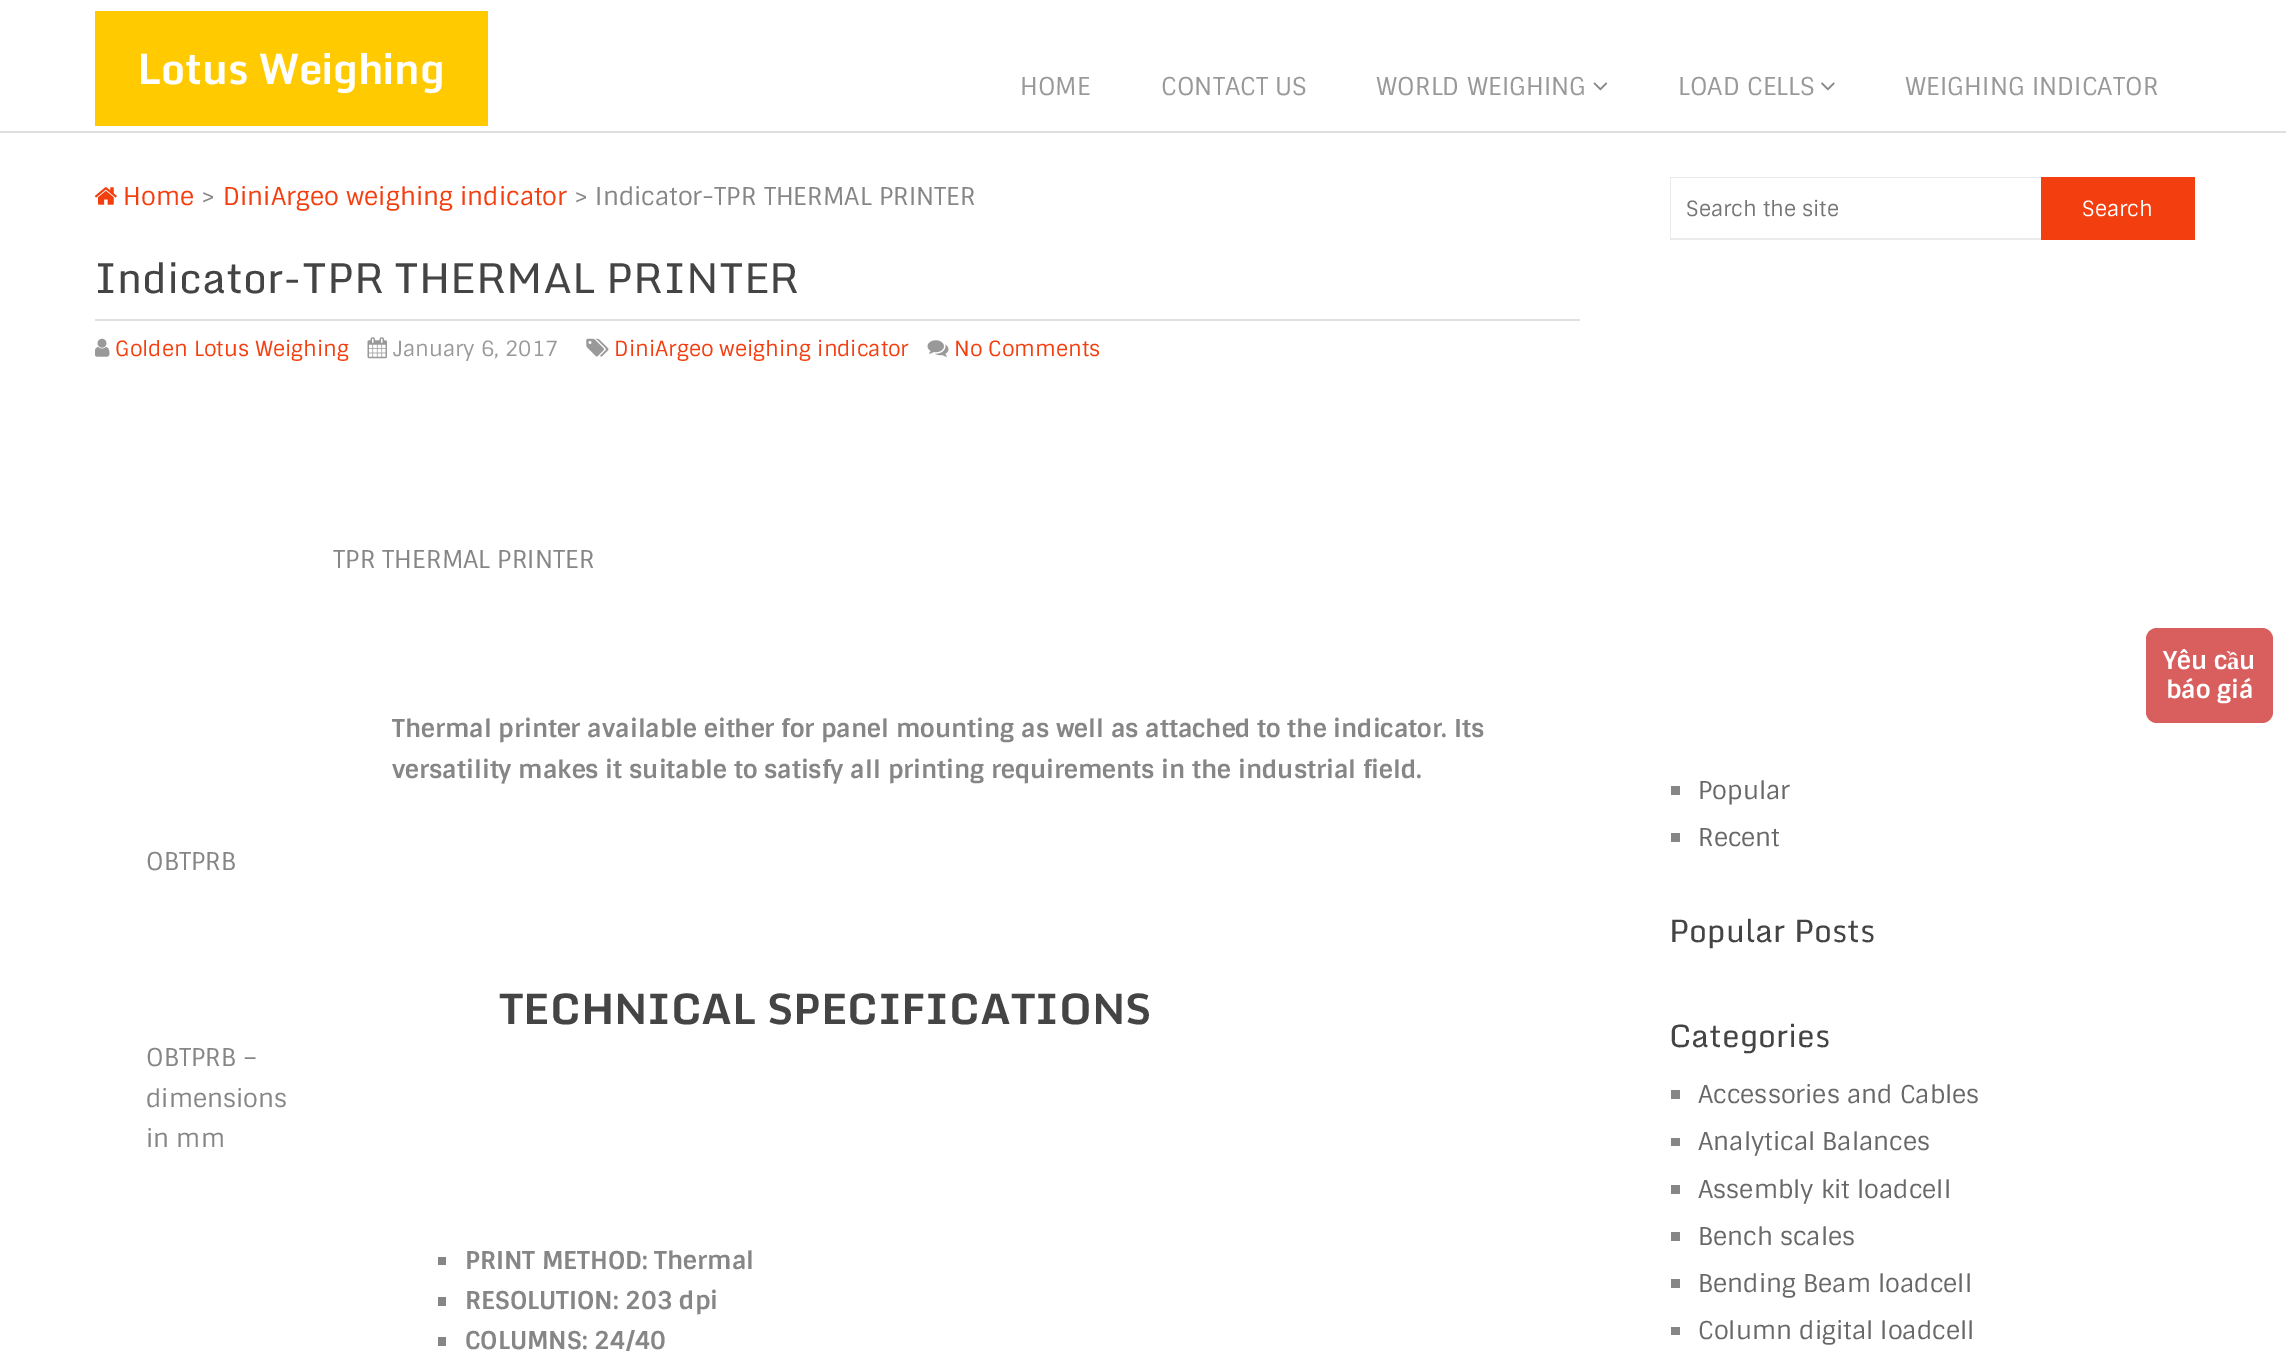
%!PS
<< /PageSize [2286 1351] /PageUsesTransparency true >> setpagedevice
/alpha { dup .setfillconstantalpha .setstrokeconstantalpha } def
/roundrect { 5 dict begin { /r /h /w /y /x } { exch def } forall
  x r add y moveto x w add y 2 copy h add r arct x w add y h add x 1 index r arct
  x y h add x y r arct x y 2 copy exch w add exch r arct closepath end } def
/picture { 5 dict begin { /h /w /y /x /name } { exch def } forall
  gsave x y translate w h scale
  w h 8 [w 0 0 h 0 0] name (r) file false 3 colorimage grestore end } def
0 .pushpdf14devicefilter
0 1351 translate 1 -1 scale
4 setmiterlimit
1 setgray
0 0 2286 1351 rectfill
0.878 setgray
0 131 2286 2 rectfill
1 0.792 0 setrgbcolor
95 11 393 115 rectfill
/Monda-Bold [42 0 0 -42 0 0] selectfont
1 setgray
137 84 moveto (Lotus Weighing) show
/Sintony-Regular [24.5 0 0 -24.5 0 0] selectfont
0.6 setgray
1020 95 moveto (HOME) show
1161 95 moveto (CONTACT US) show
1376 95 moveto (WORLD WEIGHING) show
(img1.rgb) 1593 82 15 9 picture
1678 95 moveto (LOAD CELLS) show
(img2.rgb) 1821 82 14 9 picture
1905 95 moveto (WEIGHING INDICATOR) show
(img3.rgb) 94 187 23 18 picture
0.953 0.243 0.059 setrgbcolor
123 205 moveto (Home) show
0.525 setgray
201 205 moveto (>) show
0.953 0.243 0.059 setrgbcolor
223 205 moveto (DiniArgeo weighing indicator) show
0.525 setgray
574 205 moveto (> Indicator-TPR THERMAL PRINTER) show
0.878 setgray
95 319 1485 2 rectfill
/Monda-Regular [42 0 0 -42 0 0] selectfont
0.267 setgray
94 293 moveto (Indicator-TPR THERMAL PRINTER) show
(img4.rgb) 95 338 15 19 picture
/Sintony-Regular [21 0 0 -21 0 0] selectfont
0.953 0.243 0.059 setrgbcolor
115 356 moveto (Golden Lotus Weighing) show
(img5.rgb) 367 337 20 22 picture
0.6 setgray
393 356 moveto (January 6, 2017) show
(img6.rgb) 586 338 23 19 picture
0.953 0.243 0.059 setrgbcolor
614 356 moveto (DiniArgeo weighing indicator) show
(img7.rgb) 927 340 22 17 picture
954 356 moveto (No Comments) show
/Sintony-Regular [24.5 0 0 -24.5 0 0] selectfont
0.525 setgray
333 568 moveto (TPR THERMAL PRINTER) show
146 870 moveto (OBTPRB) show
146 1066 moveto (OBTPRB –) show
146 1107 moveto (dimensions) show
146 1147 moveto (in mm) show
/Sintony-Bold [24.5 0 0 -24.5 0 0] selectfont
392 737 moveto (Thermal printer available either for panel mounting as well as attached to the indicator. Its) show
392 778 moveto (versatility makes it suitable to satisfy all printing requirements in the industrial field.) show
/Monda-Bold [42 0 0 -42 0 0] selectfont
0.267 setgray
499 1024 moveto (TECHNICAL SPECIFICATIONS) show
0.525 setgray
438 1257 8 8 rectfill
/Sintony-Bold [24.5 0 0 -24.5 0 0] selectfont
465 1269 moveto (PRINT METHOD: Thermal) show
438 1297 8 9 rectfill
465 1309 moveto (RESOLUTION: 203 dpi) show
438 1337 8 9 rectfill
465 1349 moveto (COLUMNS: 24/40) show
0.922 setgray
newpath 1670 177 moveto 2053 177 lineto 2053 178 lineto 1671 178 lineto closepath fill
newpath 2053 240 moveto 1670 240 lineto 1671 238 lineto 2053 238 lineto closepath fill
0.08 alpha
0 setgray
newpath 1670 240 moveto 1670 177 lineto 1671 178 lineto 1671 238 lineto closepath fill
/Sintony-Regular [21 0 0 -21 0 0] selectfont
1 alpha
0.459 setgray
1686 216 moveto (Search the site) show
0.953 0.243 0.059 setrgbcolor
2041 177 154 63 rectfill
1 setgray
2082 216 moveto (Search) show
0.525 setgray
1671 786 9 9 rectfill
/Sintony-Regular [24.5 0 0 -24.5 0 0] selectfont
0.412 0.408 0.408 setrgbcolor
1698 799 moveto (Popular) show
0.525 setgray
1671 833 9 9 rectfill
0.412 0.408 0.408 setrgbcolor
1698 846 moveto (Recent) show
/Monda-Regular [31.5 0 0 -31.5 0 0] selectfont
0.267 setgray
1669 942 moveto (Popular Posts) show
1669 1047 moveto (Categories) show
0.525 setgray
1671 1090 9 9 rectfill
/Sintony-Regular [24.5 0 0 -24.5 0 0] selectfont
0.412 0.408 0.408 setrgbcolor
1698 1103 moveto (Accessories and Cables) show
0.525 setgray
1671 1138 9 8 rectfill
0.412 0.408 0.408 setrgbcolor
1698 1150 moveto (Analytical Balances) show
0.525 setgray
1671 1185 9 9 rectfill
0.412 0.408 0.408 setrgbcolor
1698 1198 moveto (Assembly kit loadcell) show
0.525 setgray
1671 1232 9 9 rectfill
0.412 0.408 0.408 setrgbcolor
1698 1245 moveto (Bench scales) show
0.525 setgray
1671 1279 9 9 rectfill
0.412 0.408 0.408 setrgbcolor
1698 1292 moveto (Bending Beam loadcell) show
0.525 setgray
1671 1327 9 8 rectfill
0.412 0.408 0.408 setrgbcolor
1698 1339 moveto (Column digital loadcell) show
0.851 0.373 0.373 setrgbcolor
2146 628 127 95 11 roundrect fill
/Sintony-Bold [24.5 0 0 -24.5 0 0] selectfont
1 setgray
2163 669 moveto (Yêu c) show
/LiberationSerif-Bold [24.5 0 0 -24.5 0 0] selectfont
2227 669 moveto (ầ) show
/Sintony-Bold [24.5 0 0 -24.5 0 0] selectfont
2239 669 moveto (u) show
2166 698 moveto (báo giá) show
.poppdf14devicefilter showpage
